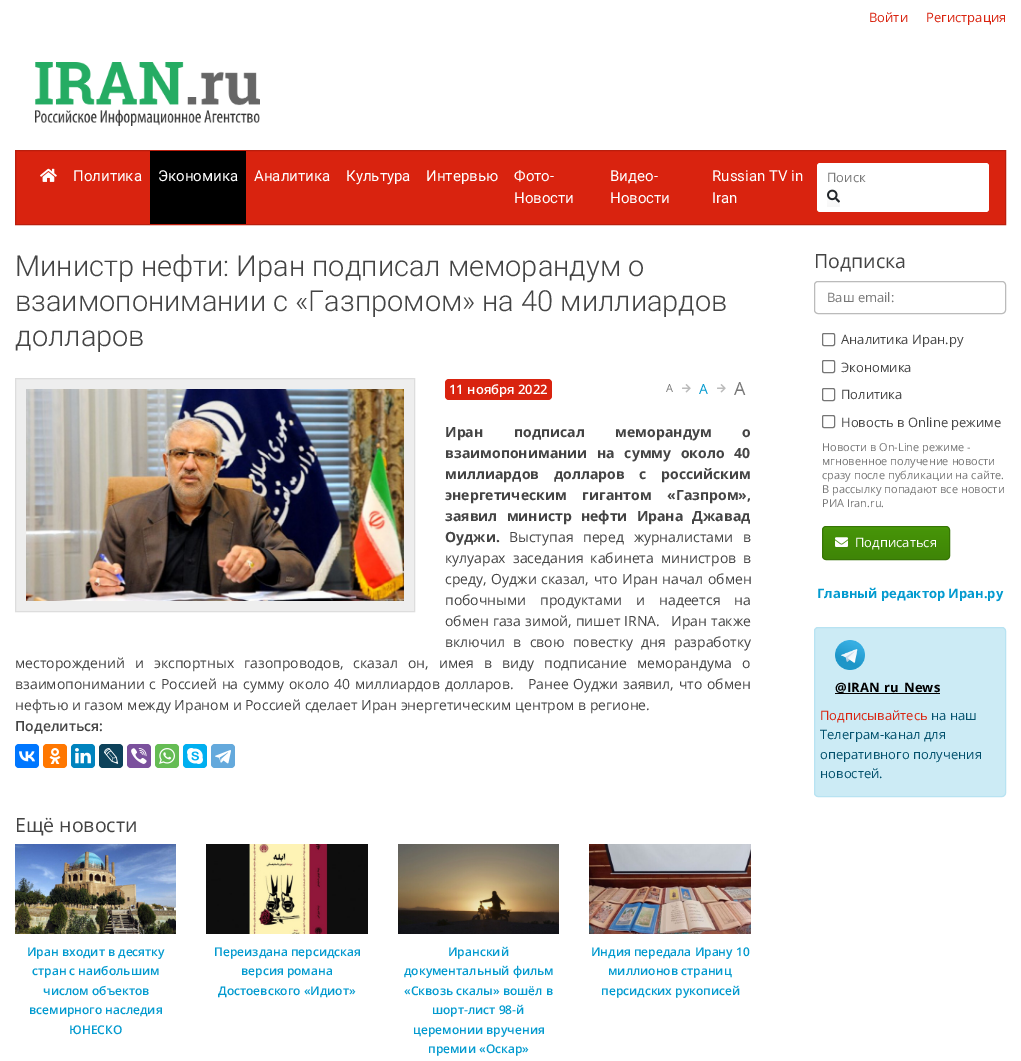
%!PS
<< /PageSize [1021 1061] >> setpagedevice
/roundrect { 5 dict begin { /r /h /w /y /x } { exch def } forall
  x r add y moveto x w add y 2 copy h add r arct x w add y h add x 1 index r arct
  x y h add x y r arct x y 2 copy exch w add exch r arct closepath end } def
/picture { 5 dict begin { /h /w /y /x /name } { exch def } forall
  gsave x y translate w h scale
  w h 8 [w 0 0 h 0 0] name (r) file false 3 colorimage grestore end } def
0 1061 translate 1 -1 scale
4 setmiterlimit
1 setgray
0 0 1021 1061 rectfill
/OpenSans-Regular [13 0 0 -13 0 0] selectfont
0.851 0.137 0.059 setrgbcolor
869 22 moveto (Войти) show
926 22 moveto (Регистрация) show
(img1.rgb) 35 62 225 64 picture
newpath 15.5 150.5 moveto 1005.5 150.5 lineto 1005.5 224.5 lineto 15.5 224.5 lineto closepath gsave fill grestore
0.729 0.118 0.051 setrgbcolor
stroke
(img2.rgb) 40 168 17 14 picture
/Roboto-Regular [15 0 0 -15 0 0] selectfont
1 setgray
73 181 moveto (Политика) show
0 setgray
150 151 96 73 rectfill
1 setgray
158 181 moveto (Экономика) show
254 181 moveto (Аналитика) show
346 181 moveto (Культура) show
426 181 moveto (Интервью) show
514 181 moveto (Фото-) show
514 203 moveto (Новости) show
610 181 moveto (Видео-) show
610 203 moveto (Новости) show
712 181 moveto (Russian TV in) show
712 203 moveto (Iran) show
817 163 172 49 3 roundrect fill
/OpenSans-Regular [13 0 0 -13 0 0] selectfont
0.467 setgray
827 182 moveto (Поиск) show
gsave newpath 827 194 moveto 840 194 lineto 840 207 lineto 827 207 lineto closepath clip newpath
<< /ShadingType 2 /ColorSpace /DeviceRGB /Coords [834 187 834 207] /Extend [true true] /Function << /FunctionType 3 /Domain [0 1] /Functions [<< /FunctionType 2 /Domain [0 1] /C0 [1 1 1] /C1 [1 1 1] /N 1 >> << /FunctionType 2 /Domain [0 1] /C0 [1 1 1] /C1 [0.969 0.969 0.969] /N 1 >>] /Bounds [0.06] /Encode [0 1 0 1] >> >> shfill grestore
(img3.rgb) 827 189 13 14 picture
/Roboto-Light [29 0 0 -29 0 0] selectfont
0.267 setgray
15 276 moveto (Министр нефти: Иран подписал меморандум о) show
15 311 moveto (взаимопонимании с «Газпромом» на 40 миллиардов) show
15 346 moveto (долларов) show
0.933 setgray
newpath 15.5 378.5 moveto 414.5 378.5 lineto 414.5 611.5 lineto 15.5 611.5 lineto closepath gsave fill grestore
0.867 setgray
stroke
(img4.rgb) 26 389 378 212 picture
0.851 0.137 0.059 setrgbcolor
445 379 107 21 4 roundrect fill
/OpenSans-SemiBold [13 0 0 -13 0 0] selectfont
1 setgray
449 394 moveto (11 ноября 2022) show
/OpenSans-Regular [11 0 0 -11 0 0] selectfont
0.467 setgray
666 392 moveto (A) show
(img5.rgb) 682 384 9 9 picture
/OpenSans-Regular [14 0 0 -14 0 0] selectfont
0.008 0.604 0.812 setrgbcolor
699 394 moveto (A) show
(img5.rgb) 717 384 9 9 picture
/OpenSans-Regular [18 0 0 -18 0 0] selectfont
0.467 setgray
734 395 moveto (A) show
/OpenSans-Bold [14 0 0 -14 0 0] selectfont
0.267 setgray
445 437 moveto 27 0 32 (Иран подписал меморандум о) widthshow
445 458 moveto 6 0 32 (взаимопонимании на сумму около 40) widthshow
445 479 moveto 11 0 32 (миллиардов долларов с российским) widthshow
445 500 moveto 12 0 32 (энергетическим гигантом «Газпром»,) widthshow
445 521 moveto 5.5 0 32 (заявил министр нефти Ирана Джавад) widthshow
445 542 moveto (Оуджи.) show
/OpenSans-Regular [14 0 0 -14 0 0] selectfont
509 542 moveto 6 0 32 (Выступая перед журналистами в) widthshow
445 563 moveto 3.5 0 32 (кулуарах заседания кабинета министров в) widthshow
445 584 moveto 1 0 32 (среду, Оуджи сказал, что Иран начал обмен) widthshow
445 605 moveto 10.5 0 32 (побочными продуктами и надеется на) widthshow
445 626 moveto 0.25 0 32 (обмен газа зимой, пишет IRNA.   Иран также) widthshow
445 647 moveto 4.5 0 32 (включил в свою повестку дня разработку) widthshow
15 668 moveto 6.5 0 32 (месторождений и экспортных газопроводов, сказал он, имея в виду подписание меморандума о) widthshow
15 689 moveto 1.1 0 32 (взаимопонимании с Россией на сумму около 40 миллиардов долларов.   Ранее Оуджи заявил, что обмен) widthshow
15 710 moveto (нефтью и газом между Ираном и Россией сделает Иран энергетическим центром в регионе.) show
/OpenSans-SemiBold [14 0 0 -14 0 0] selectfont
15 731 moveto (Поделиться:) show
0 0.467 1 setrgbcolor
15 744 24 24 4 roundrect fill
(img6.rgb) 19 751 16 11 picture
1 0.467 0 setrgbcolor
43 744 24 24 4 roundrect fill
(img7.rgb) 49 748 12 16 picture
0 0.514 0.745 setrgbcolor
71 744 24 24 4 roundrect fill
(img8.rgb) 75 748 16 16 picture
0.051 0.259 0.353 setrgbcolor
99 744 24 24 4 roundrect fill
(img9.rgb) 104 748 15 16 picture
0.482 0.318 0.616 setrgbcolor
127 744 24 24 4 roundrect fill
(img10.rgb) 131 748 16 16 picture
0.396 0.737 0.329 setrgbcolor
155 744 24 24 4 roundrect fill
(img11.rgb) 159 748 16 16 picture
0 0.686 0.941 setrgbcolor
183 744 24 24 4 roundrect fill
(img12.rgb) 187 748 16 16 picture
0.392 0.663 0.863 setrgbcolor
211 744 24 24 4 roundrect fill
(img13.rgb) 215 750 16 14 picture
/OpenSans-Regular [19.5 0 0 -19.5 0 0] selectfont
0.267 setgray
15 832 moveto (Ещё новости) show
(img14.rgb) 15 844 161 90 picture
/OpenSans-SemiBold [12 0 0 -12 0 0] selectfont
0.008 0.604 0.812 setrgbcolor
27 956 moveto (Иран входит в десятку) show
32 975 moveto (стран с наибольшим) show
43 995 moveto (числом объектов) show
29 1014 moveto (всемирного наследия) show
69 1034 moveto (ЮНЕСКО) show
(img15.rgb) 206 844 162 90 picture
214 956 moveto (Переиздана персидская) show
241 975 moveto (версия романа) show
218 995 moveto (Достоевского «Идиот») show
(img16.rgb) 398 844 161 90 picture
448 956 moveto (Иранский) show
404 975 moveto (документальный фильм) show
404 995 moveto («Сквозь скалы» вошёл в) show
432 1014 moveto (шорт-лист 98-й) show
413 1034 moveto (церемонии вручения) show
428 1053 moveto (премии «Оскар») show
(img17.rgb) 589 844 162 90 picture
591 956 moveto (Индия передала Ирану 10) show
608 975 moveto (миллионов страниц) show
601 995 moveto (персидских рукописей) show
/OpenSans-Regular [19.5 0 0 -19.5 0 0] selectfont
0.267 setgray
814 268 moveto (Подписка) show
0.733 setgray
814.5 281.5 191 32 3.5 roundrect stroke
/OpenSans-Regular [13 0 0 -13 0 0] selectfont
0.467 setgray
827 302 moveto (Ваш email:) show
0.463 setgray
822.5 333.5 12 12 1.5 roundrect stroke
0.267 setgray
841 344 moveto (Аналитика Иран.ру) show
0.463 setgray
822.5 360.5 12 12 1.5 roundrect stroke
0.267 setgray
841 372 moveto (Экономика) show
0.463 setgray
822.5 388.5 12 12 1.5 roundrect stroke
0.267 setgray
841 399 moveto (Политика) show
0.463 setgray
822.5 415.5 12 12 1.5 roundrect stroke
0.267 setgray
841 427 moveto (Новость в Online режиме) show
/OpenSans-Regular [11 0 0 -11 0 0] selectfont
0.467 setgray
822 451 moveto (Новости в On-Line режиме -) show
822 465 moveto (мгновенное получение новости) show
822 479 moveto (сразу после публикации на сайте.) show
822 493 moveto (В рассылку попадают все новости) show
822 507 moveto (РИА Iran.ru.) show
gsave
822 526 128 34 4 roundrect clip newpath
gsave newpath 823 527 moveto 949 527 lineto 949 559 lineto 823 559 lineto closepath clip newpath
<< /ShadingType 2 /ColorSpace /DeviceRGB /Coords [886 527 886 559] /Extend [true true] /Function << /FunctionType 3 /Domain [0 1] /Functions [<< /FunctionType 2 /Domain [0 1] /C0 [0.302 0.639 0.035] /C1 [0.275 0.58 0.031] /N 1 >> << /FunctionType 2 /Domain [0 1] /C0 [0.275 0.58 0.031] /C1 [0.247 0.522 0.027] /N 1 >>] /Bounds [0.06] /Encode [0 1 0 1] >> >> shfill grestore
grestore
0.216 0.459 0.024 setrgbcolor
822.5 526.5 127 33 3.5 roundrect stroke
(img18.rgb) 835 537 13 10 picture
/OpenSans-Regular [13 0 0 -13 0 0] selectfont
1 setgray
855 547 moveto (Подписаться) show
/OpenSans-Bold [13 0 0 -13 0 0] selectfont
0.008 0.604 0.812 setrgbcolor
817 598 moveto (Главный редактор Иран.ру) show
0.8 0.922 0.961 setrgbcolor
814.5 627.5 191 169 3.5 roundrect gsave fill grestore
0.722 0.89 0.949 setrgbcolor
stroke
(img19.rgb) 835 640 30 30 picture
0 setgray
835 693 105 1 rectfill
835 692 moveto (@IRAN_ru_News) show
/OpenSans-Regular [13 0 0 -13 0 0] selectfont
0.851 0.137 0.059 setrgbcolor
820 720 moveto (Подписывайтесь) show
0.004 0.314 0.424 setrgbcolor
931 720 moveto (на наш) show
820 739 moveto (Телеграм-канал для) show
820 759 moveto (оперативного получения) show
820 778 moveto (новостей.) show
showpage
